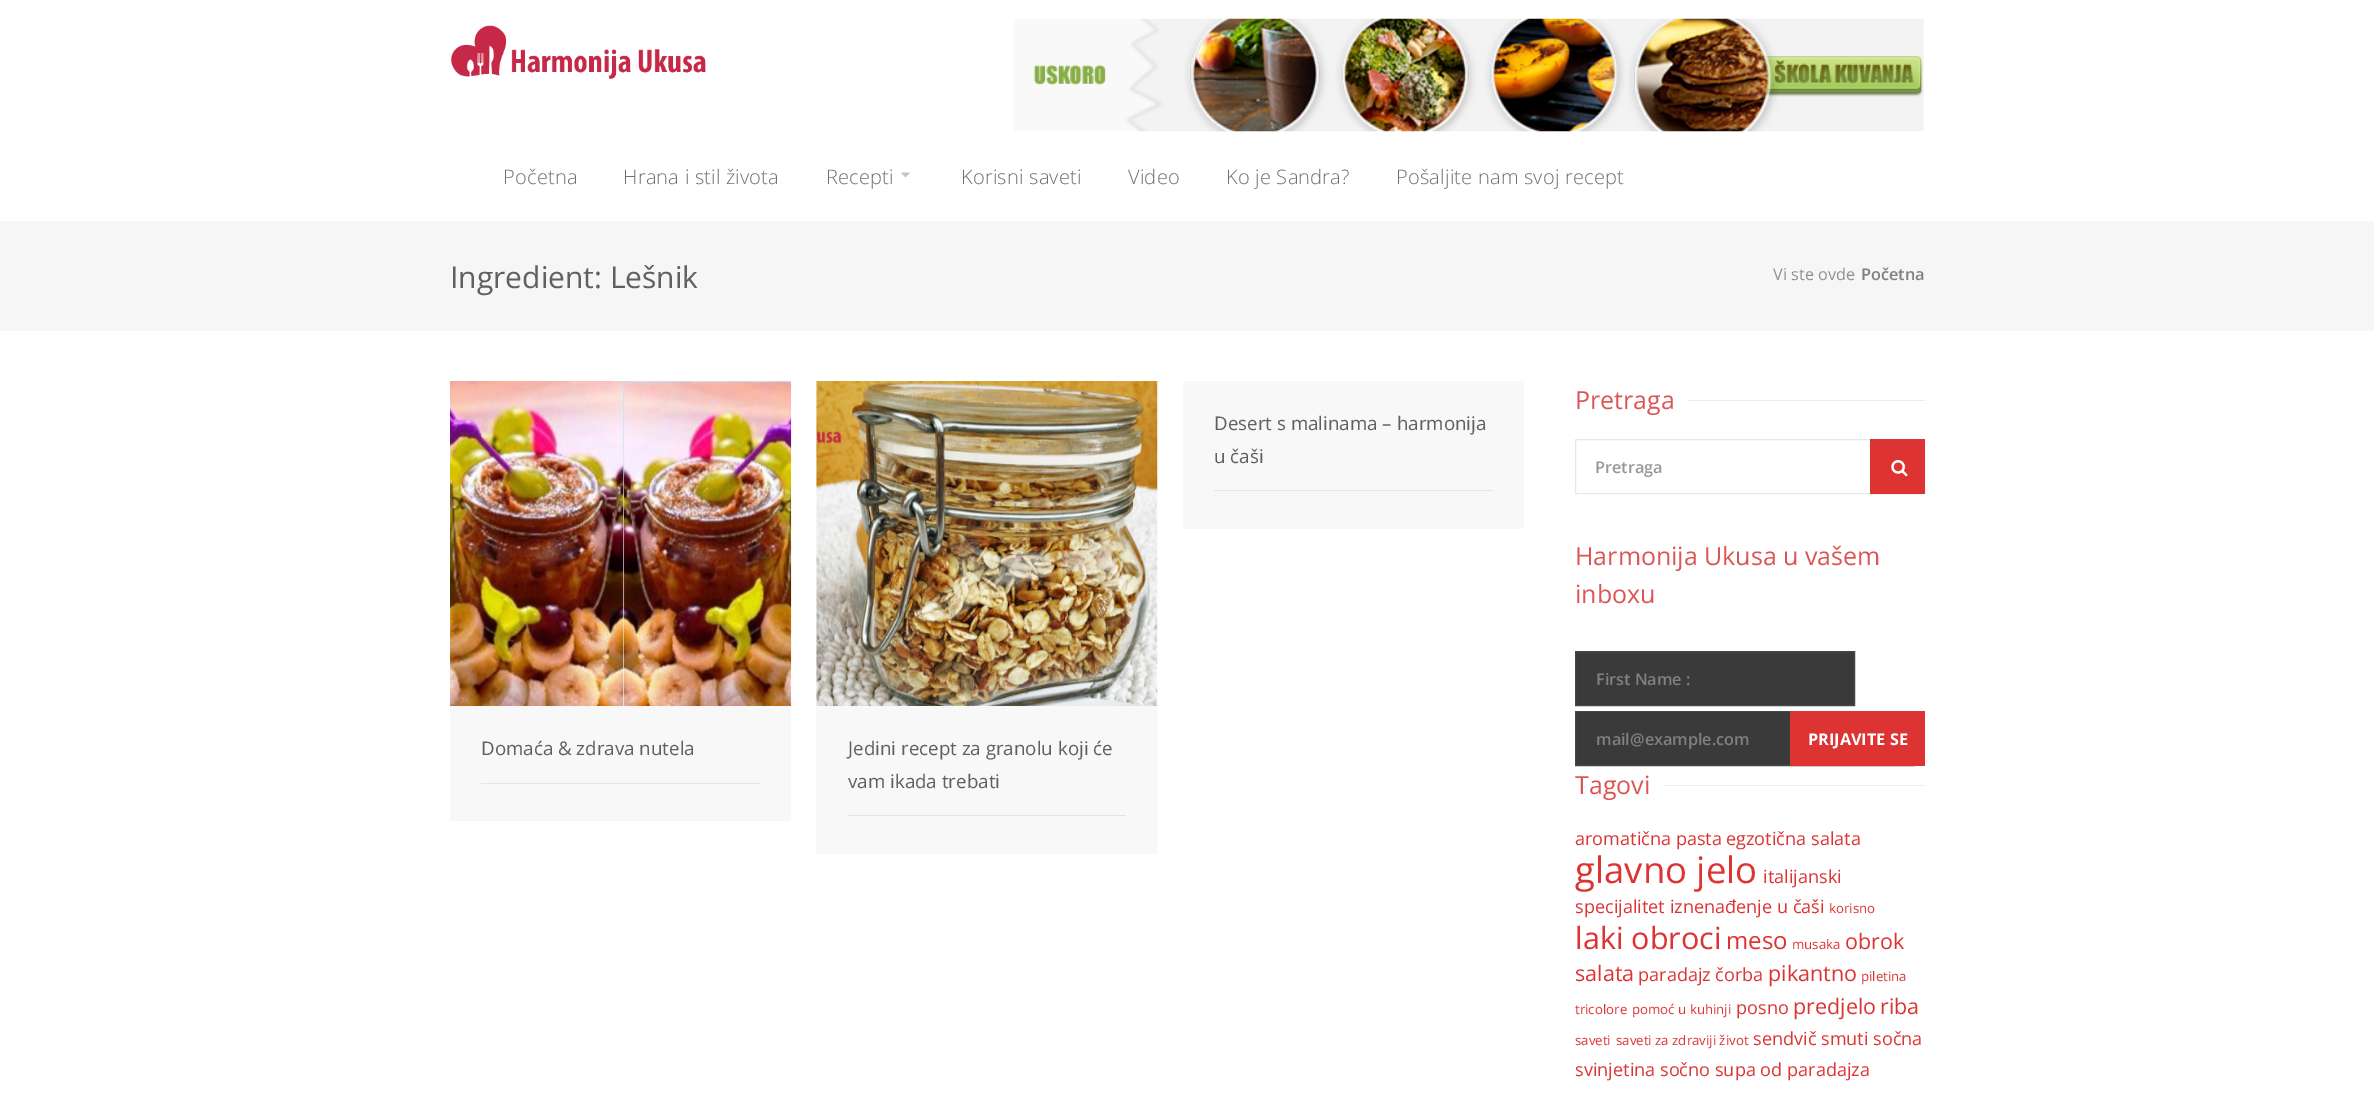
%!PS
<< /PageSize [2374 1096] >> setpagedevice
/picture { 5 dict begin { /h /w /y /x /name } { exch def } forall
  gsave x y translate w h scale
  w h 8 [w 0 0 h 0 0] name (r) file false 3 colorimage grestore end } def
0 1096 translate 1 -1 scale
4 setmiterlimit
1 setgray
0 0 2374 1096 rectfill
(img1.rgb) 450 25 256 54 picture
(img2.rgb) 1014 18 910 114 picture
/OpenSans-Light [20 0 0 -20 0 0] selectfont
0.439 setgray
503 184 moveto 0.2 0 (Početna) ashow
623 184 moveto 0.2 0 (Hrana i stil života) ashow
826 184 moveto 0.2 0 (Recepti) ashow
(img3.rgb) 901 172 9 6 picture
961 184 moveto 0.2 0 (Korisni saveti) ashow
1128 184 moveto 0.2 0 (Video) ashow
1226 184 moveto 0.2 0 (Ko je Sandra?) ashow
1396 184 moveto 0.2 0 (Pošaljite nam svoj recept) ashow
0.965 setgray
0 221 2374 110 rectfill
/OpenSans-Regular [30 0 0 -30 0 0] selectfont
0.376 setgray
450 288 moveto (Ingredient: Lešnik) show
/OpenSans-Regular [16.25 0 0 -16.25 0 0] selectfont
0.565 setgray
1773 280 moveto (Vi ste ovde) show
/OpenSans-SemiBold [16.25 0 0 -16.25 0 0] selectfont
0.502 setgray
1861 280 moveto (Početna) show
0.973 setgray
1183 381 341 148 rectfill
0.898 setgray
1214 490 279 1 rectfill
/OpenSans-Regular [18.75 0 0 -18.75 0 0] selectfont
0.376 setgray
1214 430 moveto (Desert s malinama – harmonija) show
1214 463 moveto (u čaši) show
(img4.rgb) 450 381 342 325 picture
0.973 setgray
450 706 341 115 rectfill
0.898 setgray
481 783 279 1 rectfill
0.376 setgray
481 755 moveto (Domaća & zdrava nutela) show
(img5.rgb) 816 381 342 325 picture
0.973 setgray
816 706 342 148 rectfill
0.898 setgray
848 815 278 1 rectfill
0.376 setgray
848 755 moveto (Jedini recept za granolu koji će) show
848 788 moveto (vam ikada trebati) show
/OpenSans-Regular [25 0 0 -25 0 0] selectfont
0.867 0.329 0.329 setrgbcolor
1575 409 moveto (Pretraga) show
0.922 setgray
1688 400 237 1 rectfill
0.91 setgray
1575.5 439.5 349 54 rectstroke
/OpenSans-SemiBold [16.25 0 0 -16.25 0 0] selectfont
0.6 setgray
1595 473 moveto (Pretraga) show
0.867 0.2 0.2 setrgbcolor
1870 439 55 55 rectfill
(img6.rgb) 1891 460 17 17 picture
/OpenSans-Regular [25 0 0 -25 0 0] selectfont
0.867 0.329 0.329 setrgbcolor
1575 565 moveto (Harmonija Ukusa u vašem) show
1575 603 moveto (inboxu) show
0.227 setgray
newpath 1575.5 651.5 moveto 1854.5 651.5 lineto 1854.5 705.5 lineto 1575.5 705.5 lineto closepath gsave fill grestore
0.278 setgray
stroke
/OpenSans-SemiBold [16.25 0 0 -16.25 0 0] selectfont
0.502 setgray
1596 685 moveto (First Name :) show
0.227 setgray
1576 712 214 53 rectfill
0.278 setgray
1575.5 711.5 339 54 rectstroke
0.502 setgray
1596 745 moveto (mail@example.com) show
0.867 0.2 0.2 setrgbcolor
1790 711 135 55 rectfill
/OpenSans-Bold [16.25 0 0 -16.25 0 0] selectfont
1 setgray
1808 745 moveto (PRIJAVITE SE) show
/OpenSans-Regular [25 0 0 -25 0 0] selectfont
0.867 0.329 0.329 setrgbcolor
1575 794 moveto (Tagovi) show
0.922 setgray
1663 785 262 1 rectfill
/OpenSans-Regular [18.1 0 0 -18.1 0 0] selectfont
0.867 0.2 0.2 setrgbcolor
1575 845 moveto (aromatična pasta) show
1726 845 moveto (egzotična salata) show
/OpenSans-Regular [36.5 0 0 -36.5 0 0] selectfont
1575 883 moveto (glavno jelo) show
/OpenSans-Regular [18.1 0 0 -18.1 0 0] selectfont
1763 883 moveto (italijanski) show
1575 913 moveto (specijalitet iznenađenje u čaši) show
/OpenSans-Regular [13.25 0 0 -13.25 0 0] selectfont
1829 913 moveto (korisno) show
/OpenSans-Regular [30.5 0 0 -30.5 0 0] selectfont
1575 949 moveto (laki obroci) show
/OpenSans-Regular [24 0 0 -24 0 0] selectfont
1726 949 moveto (meso) show
/OpenSans-Regular [13.25 0 0 -13.25 0 0] selectfont
1792 949 moveto (musaka) show
/OpenSans-Regular [21.5 0 0 -21.5 0 0] selectfont
1845 949 moveto (obrok) show
1575 981 moveto (salata) show
/OpenSans-Regular [18.1 0 0 -18.1 0 0] selectfont
1638 981 moveto (paradajz čorba) show
/OpenSans-Regular [21.5 0 0 -21.5 0 0] selectfont
1768 981 moveto (pikantno) show
/OpenSans-Regular [13.25 0 0 -13.25 0 0] selectfont
1861 981 moveto (piletina) show
1575 1014 moveto (tricolore) show
1632 1014 moveto (pomoć u kuhinji) show
/OpenSans-Regular [18.1 0 0 -18.1 0 0] selectfont
1736 1014 moveto (posno) show
/OpenSans-Regular [21.5 0 0 -21.5 0 0] selectfont
1793 1014 moveto (predjelo) show
1880 1014 moveto (riba) show
/OpenSans-Regular [13.25 0 0 -13.25 0 0] selectfont
1575 1045 moveto (saveti) show
1616 1045 moveto (saveti za zdraviji život) show
/OpenSans-Regular [18.1 0 0 -18.1 0 0] selectfont
1753 1045 moveto (sendvič smuti sočna) show
1575 1076 moveto (svinjetina sočno supa od paradajza) show
showpage
